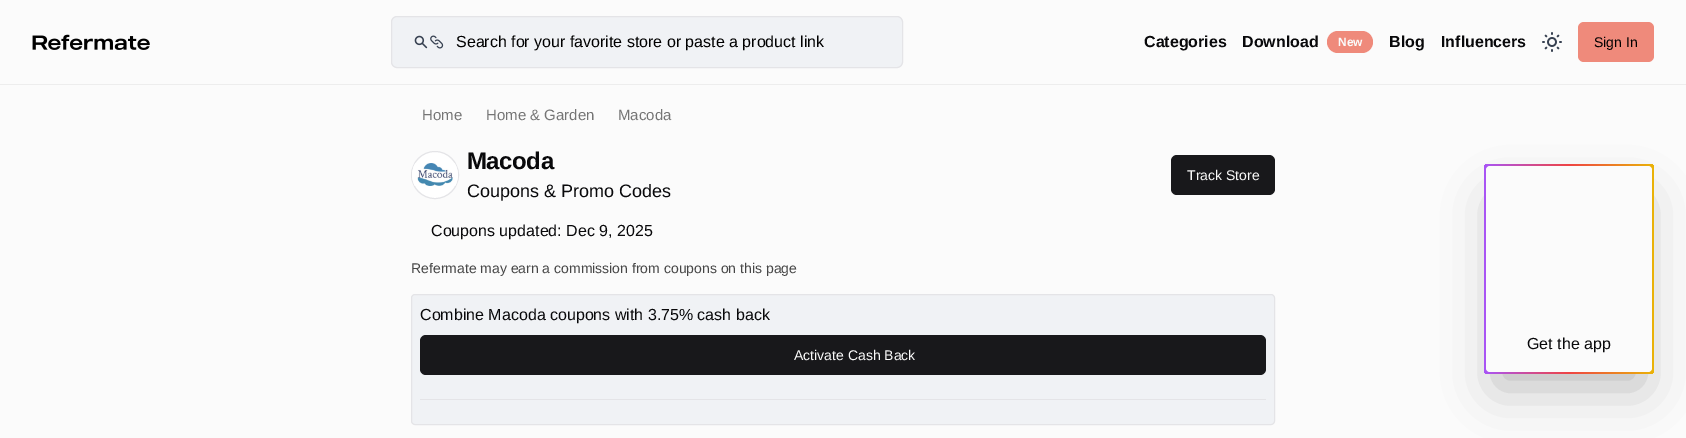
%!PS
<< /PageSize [1686 438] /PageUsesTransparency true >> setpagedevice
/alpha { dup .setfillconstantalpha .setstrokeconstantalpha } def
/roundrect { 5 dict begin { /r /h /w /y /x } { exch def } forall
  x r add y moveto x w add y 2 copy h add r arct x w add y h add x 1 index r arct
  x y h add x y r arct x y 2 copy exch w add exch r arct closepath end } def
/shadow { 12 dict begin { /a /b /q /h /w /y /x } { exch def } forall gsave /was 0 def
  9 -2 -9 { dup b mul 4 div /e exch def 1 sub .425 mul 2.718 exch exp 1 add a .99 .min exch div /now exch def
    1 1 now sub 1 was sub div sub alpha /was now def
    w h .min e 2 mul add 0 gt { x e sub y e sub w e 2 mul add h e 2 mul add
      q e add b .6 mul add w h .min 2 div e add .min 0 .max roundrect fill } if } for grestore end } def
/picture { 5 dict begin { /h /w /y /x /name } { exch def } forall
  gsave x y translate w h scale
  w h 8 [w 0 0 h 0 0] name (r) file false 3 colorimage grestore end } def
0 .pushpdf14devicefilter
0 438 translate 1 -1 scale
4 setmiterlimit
0.984 setgray
0 0 1686 438 rectfill
0.929 setgray
0 84 1686 1 rectfill
(img1.rgb) 32 34 118 16 picture
0.941 0.949 0.961 setrgbcolor
391.5 16.5 511 51 5.5 roundrect gsave fill grestore
0.894 0.894 0.906 setrgbcolor
stroke
(img2.rgb) 414 35 30 14 picture
/LiberationSans-Regular [16 0 0 -16 0 0] selectfont
0 setgray
456 47 moveto (Search for your favorite store or paste a product link) show
/LiberationSans-Bold [16 0 0 -16 0 0] selectfont
0.035 0.035 0.043 setrgbcolor
1144 47 moveto (Categories) show
1242 47 moveto (Download) show
0.937 0.541 0.482 setrgbcolor
1327 31 46 22 11 roundrect fill
/LiberationSans-Bold [12 0 0 -12 0 0] selectfont
0.98 setgray
1338 46 moveto (New) show
/LiberationSans-Bold [16 0 0 -16 0 0] selectfont
0.035 0.035 0.043 setrgbcolor
1389 47 moveto (Blog) show
1441 47 moveto (Influencers) show
(img3.rgb) 1542 32 20 20 picture
0.937 0.541 0.482 setrgbcolor
1578 22 76 40 6 roundrect fill
/LiberationSans-Regular [14 0 0 -14 0 0] selectfont
0 setgray
1594 47 moveto (Sign In) show
/LiberationSans-Regular [15 0 0 -15 0 0] selectfont
0.459 setgray
422 120 moveto (Home) show
486 120 moveto (Home & Garden) show
618 120 moveto (Macoda) show
1 setgray
newpath 435 175 23.5 0 360 arc closepath gsave fill grestore
0.894 0.894 0.906 setrgbcolor
stroke
(img4.rgb) 412 163 46 23 picture
/LiberationSans-Bold [24 0 0 -24 0 0] selectfont
0.035 0.035 0.043 setrgbcolor
467 169 moveto -0.5 0 (Macoda) ashow
/LiberationSans-Regular [18 0 0 -18 0 0] selectfont
467 197 moveto (Coupons & Promo Codes) show
0.094 0.094 0.106 setrgbcolor
1171 155 104 40 6 roundrect fill
/LiberationSans-Regular [14 0 0 -14 0 0] selectfont
0.98 setgray
1187 180 moveto (Track Store) show
/LiberationSans-Regular [16 0 0 -16 0 0] selectfont
0.035 0.035 0.043 setrgbcolor
431 236 moveto (Coupons updated: Dec 9, 2025) show
/LiberationSans-Regular [14 0 0 -14 0 0] selectfont
0.275 setgray
411 273 moveto (Refermate may earn a commission from coupons on this page) show
0.941 0.949 0.961 setrgbcolor
411.5 294.5 863 130 3.5 roundrect gsave fill grestore
0.894 0.894 0.906 setrgbcolor
stroke
/LiberationSans-Regular [16 0 0 -16 0 0] selectfont
0.035 0.035 0.043 setrgbcolor
420 320 moveto (Combine Macoda coupons with 3.75% cash back) show
0.094 0.094 0.106 setrgbcolor
420 335 846 40 6 roundrect fill
/LiberationSans-Regular [14 0 0 -14 0 0] selectfont
0.98 setgray
794 360 moveto (Activate Cash Back) show
0.894 0.894 0.906 setrgbcolor
420 399 846 1 rectfill
0 setgray
1496 201 146 186 0 25 0.25 shadow
gsave 1484 164 170 210 4 roundrect clip newpath
<< /ShadingType 2 /ColorSpace /DeviceRGB /Coords [1484 269 1654 269] /Extend [true true] /Function << /FunctionType 3 /Domain [0 1] /Functions [<< /FunctionType 2 /Domain [0 1] /C0 [0.659 0.333 0.969] /C1 [0.937 0.267 0.267] /N 1 >> << /FunctionType 2 /Domain [0 1] /C0 [0.937 0.267 0.267] /C1 [0.918 0.702 0.031] /N 1 >>] /Bounds [0.5] /Encode [0 1 0 1] >> >> shfill grestore
0.984 setgray
1486 166 166 206 4 roundrect fill
/LiberationSans-Regular [16 0 0 -16 0 0] selectfont
0.035 0.035 0.043 setrgbcolor
1527 349 moveto (Get the app) show
.poppdf14devicefilter showpage
